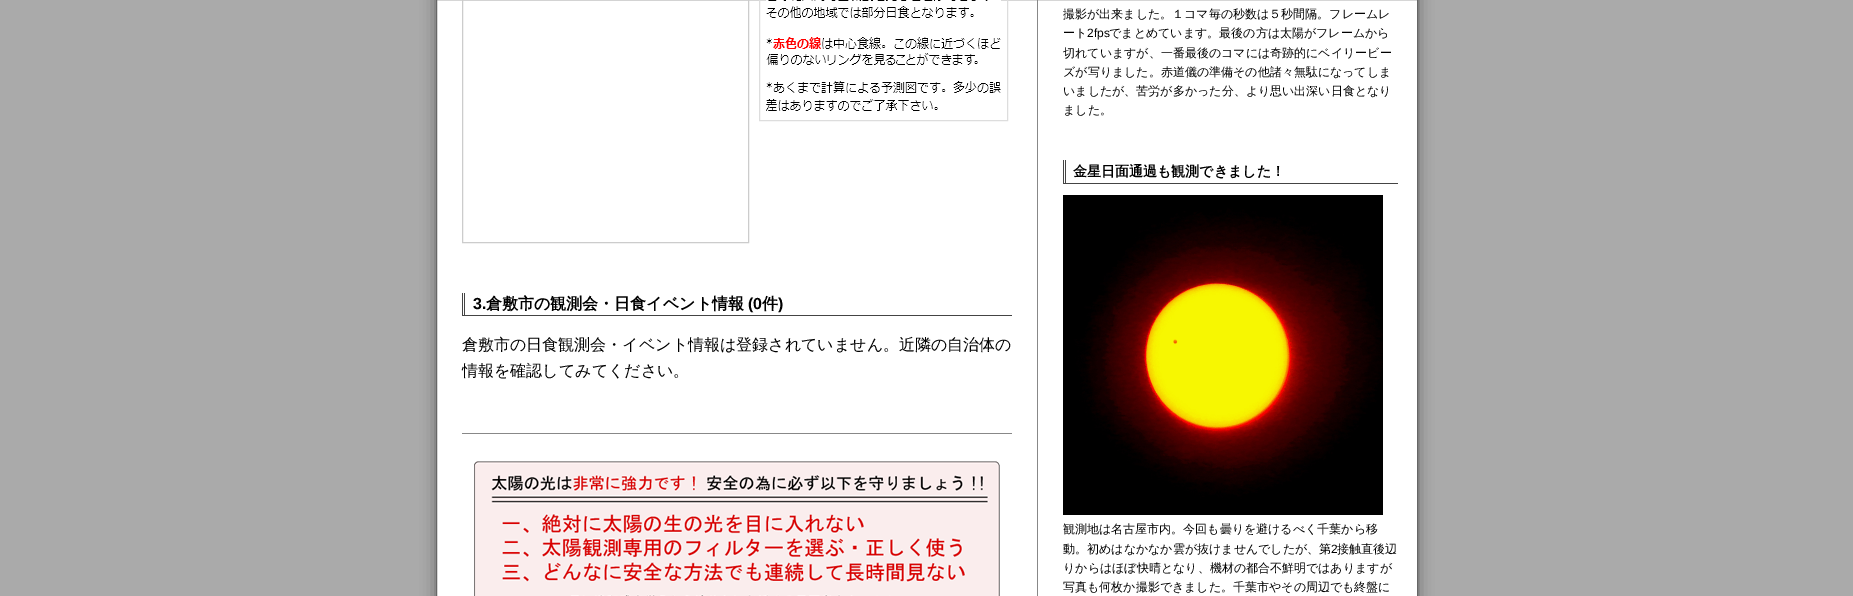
%!PS
<< /PageSize [1853 596] /PageUsesTransparency true >> setpagedevice
/alpha { dup .setfillconstantalpha .setstrokeconstantalpha } def
/roundrect { 5 dict begin { /r /h /w /y /x } { exch def } forall
  x r add y moveto x w add y 2 copy h add r arct x w add y h add x 1 index r arct
  x y h add x y r arct x y 2 copy exch w add exch r arct closepath end } def
/shadow { 12 dict begin { /a /b /q /h /w /y /x } { exch def } forall gsave /was 0 def
  9 -2 -9 { dup b mul 4 div /e exch def 1 sub .425 mul 2.718 exch exp 1 add a .99 .min exch div /now exch def
    1 1 now sub 1 was sub div sub alpha /was now def
    w h .min e 2 mul add 0 gt { x e sub y e sub w e 2 mul add h e 2 mul add
      q e add b .6 mul add w h .min 2 div e add .min 0 .max roundrect fill } if } for grestore end } def
/picture { 5 dict begin { /h /w /y /x /name } { exch def } forall
  gsave x y translate w h scale
  w h 8 [w 0 0 h 0 0] name (r) file false 3 colorimage grestore end } def
0 .pushpdf14devicefilter
0 596 translate 1 -1 scale
4 setmiterlimit
0.667 setgray
0 0 1853 596 rectfill
0.4 setgray
436 -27 982 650 4 7.5 1 shadow
1 setgray
newpath 436.5 -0.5 moveto 1417.5 -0.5 lineto 1417.5 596.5 lineto 436.5 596.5 lineto closepath gsave fill grestore
0.4 setgray
stroke
0.8 setgray
462.5 -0.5 286 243 rectstroke
0.867 setgray
759.5 -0.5 248 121 rectstroke
(img1.rgb) 766 0 235 111 picture
0.267 setgray
462 315 550 1 rectfill
462 293 1 23 rectfill
464 293 1 23 rectfill
/LiberationSans-Bold [16 0 0 -16 0 0] selectfont
0 setgray
473 309 moveto (3.) show
/WenQuanYiZenHei-Bold [16 0 0 -16 0 0] selectfont
486 309 moveto (倉敷市の観測会・日食イベント情報) show
/LiberationSans-Bold [16 0 0 -16 0 0] selectfont
748 309 moveto (\(0) show
/WenQuanYiZenHei-Bold [16 0 0 -16 0 0] selectfont
762 309 moveto (件) show
/LiberationSans-Bold [16 0 0 -16 0 0] selectfont
778 309 moveto (\)) show
/WenQuanYiZenHei-Medium [16 0 0 -16 0 0] selectfont
462 350 moveto (倉敷市の日食観測会・イベント情報は登録されていません。近隣の自治体の) show
462 376 moveto (情報を確認してみてください。) show
0.533 setgray
462 433 550 1 rectfill
(img2.rgb) 474 461 526 135 picture
1037 0 1 596 rectfill
/WenQuanYiZenHei-Medium [12 0 0 -12 0 0] selectfont
0 setgray
1063 18 moveto (撮影が出来ました。１コマ毎の秒数は５秒間隔。フレームレ) show
1063 37 moveto (ート) show
/LiberationSans-Regular [12 0 0 -12 0 0] selectfont
1087 37 moveto (2fps) show
/WenQuanYiZenHei-Medium [12 0 0 -12 0 0] selectfont
1109 37 moveto (でまとめています。最後の方は太陽がフレームから) show
1063 57 moveto (切れていますが、一番最後のコマには奇跡的にベイリービー) show
1063 76 moveto (ズが写りました。赤道儀の準備その他諸々無駄になってしま) show
1063 95 moveto (いましたが、苦労が多かった分、より思い出深い日食となり) show
1063 114 moveto (ました。) show
0.267 setgray
1063 183 335 1 rectfill
1063 160 1 24 rectfill
1065 160 1 24 rectfill
/WenQuanYiZenHei-Bold [14 0 0 -14 0 0] selectfont
0 setgray
1073 176 moveto (金星日面通過も観測できました！) show
(img3.rgb) 1063 195 320 320 picture
/WenQuanYiZenHei-Medium [12 0 0 -12 0 0] selectfont
1063 533 moveto (観測地は名古屋市内。今回も曇りを避けるべく千葉から移) show
1063 553 moveto (動。初めはなかなか雲が抜けませんでしたが、第) show
/LiberationSans-Regular [12 0 0 -12 0 0] selectfont
1331 553 moveto (2) show
/WenQuanYiZenHei-Medium [12 0 0 -12 0 0] selectfont
1337 553 moveto (接触直後辺) show
1063 572 moveto (りからはほぼ快晴となり、機材の都合不鮮明ではありますが) show
1063 591 moveto (写真も何枚か撮影できました。千葉市やその周辺でも終盤に) show
.poppdf14devicefilter showpage
